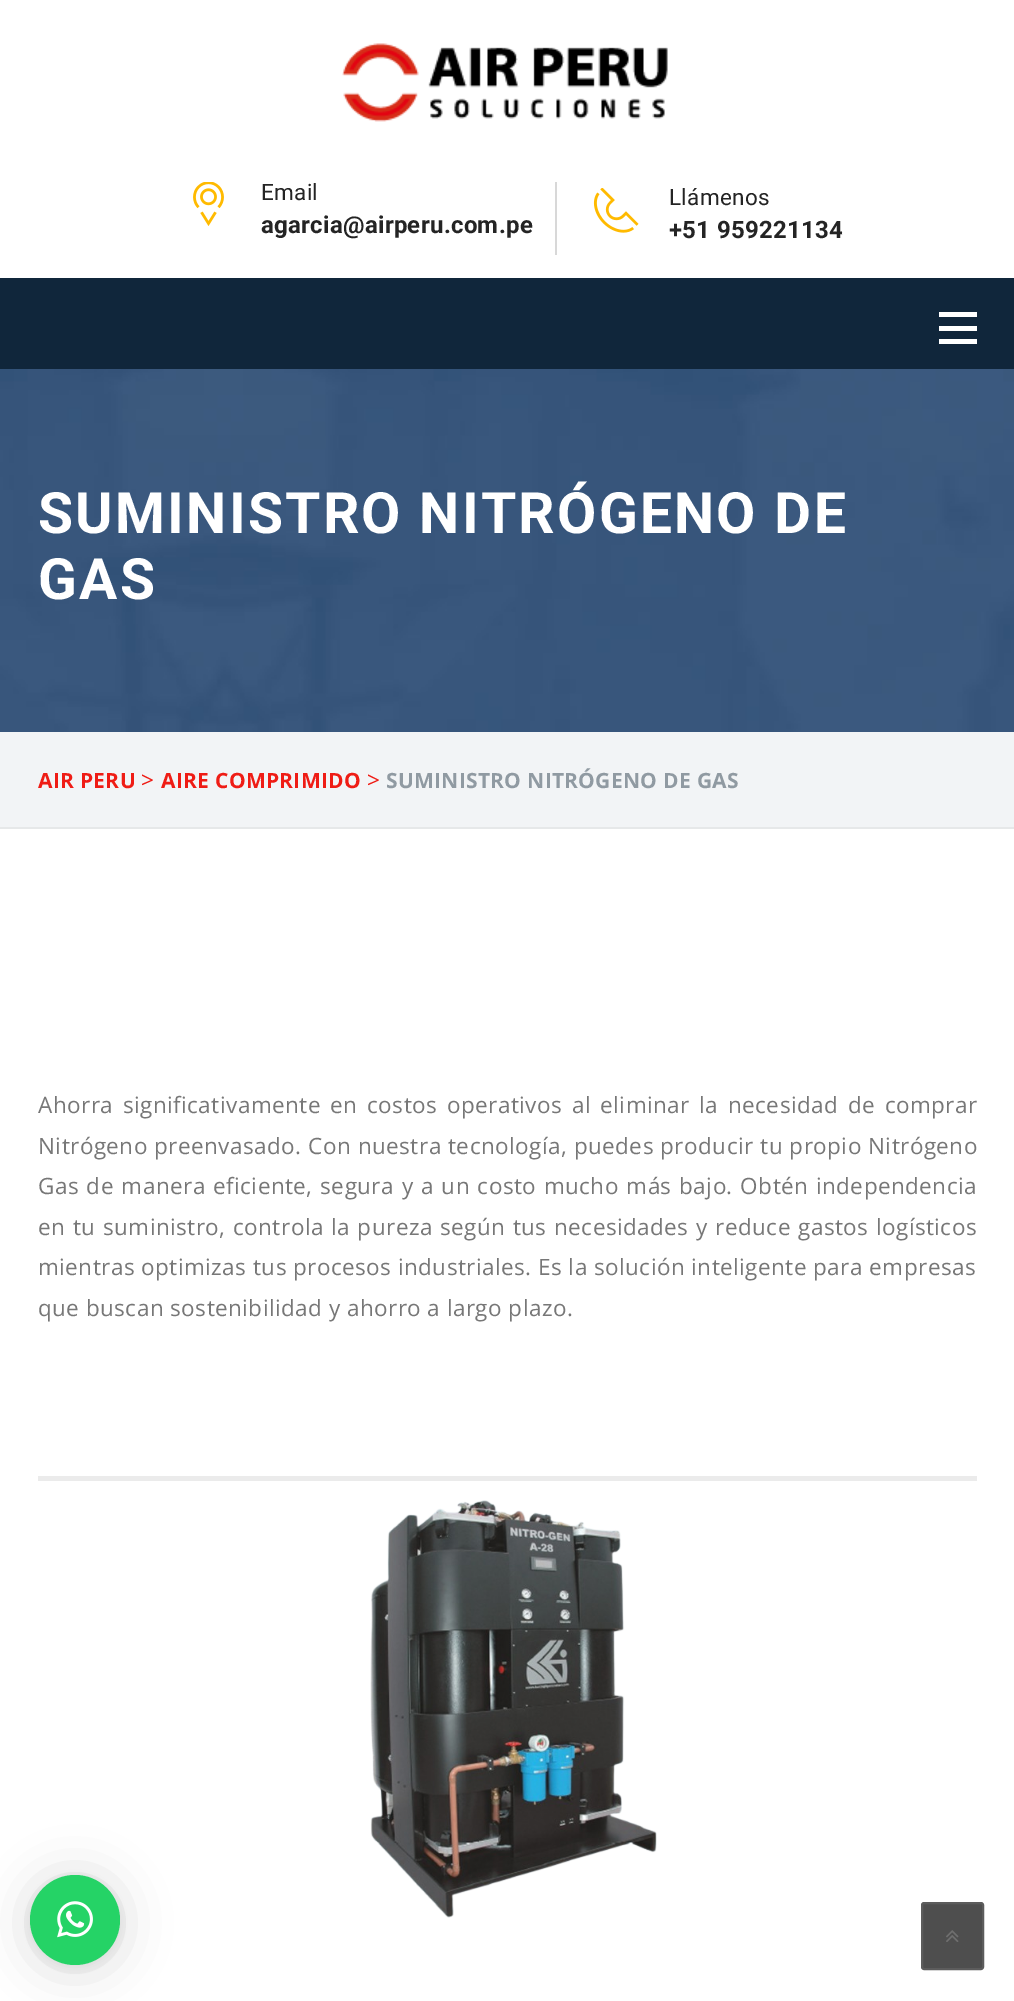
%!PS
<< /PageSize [1014 2001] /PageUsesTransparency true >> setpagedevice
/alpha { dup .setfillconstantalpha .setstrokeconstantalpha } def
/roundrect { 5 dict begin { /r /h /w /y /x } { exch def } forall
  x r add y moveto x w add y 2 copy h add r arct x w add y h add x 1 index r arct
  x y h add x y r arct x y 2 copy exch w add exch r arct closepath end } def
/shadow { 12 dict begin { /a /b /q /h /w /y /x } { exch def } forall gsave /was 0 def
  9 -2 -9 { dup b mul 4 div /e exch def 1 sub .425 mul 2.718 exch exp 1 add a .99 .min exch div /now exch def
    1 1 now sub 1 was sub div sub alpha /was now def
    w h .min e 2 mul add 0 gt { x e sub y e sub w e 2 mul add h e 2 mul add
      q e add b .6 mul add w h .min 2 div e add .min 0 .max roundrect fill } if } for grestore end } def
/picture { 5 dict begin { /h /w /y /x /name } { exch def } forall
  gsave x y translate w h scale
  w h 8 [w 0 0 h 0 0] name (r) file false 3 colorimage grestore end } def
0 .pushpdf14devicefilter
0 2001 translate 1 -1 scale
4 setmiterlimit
1 setgray
0 0 1014 2001 rectfill
(img1.rgb) 342 43 326 79 picture
0.847 setgray
555 182 2 73 rectfill
(img2.rgb) 193 182 31 44 picture
/Roboto-Regular [22.5 0 0 -22.5 0 0] selectfont
0.141 setgray
261 200 moveto 0.3 0 (Email) ashow
/Roboto-Bold [24 0 0 -24 0 0] selectfont
261 233 moveto 0.3 0 (agarcia@airperu.com.pe) ashow
(img3.rgb) 593 188 46 45 picture
/Roboto-Regular [22.5 0 0 -22.5 0 0] selectfont
669 205 moveto 0.3 0 (Llámenos) ashow
/Roboto-Bold [24 0 0 -24 0 0] selectfont
669 238 moveto 0.3 0 (+51 959221134) ashow
0.063 0.149 0.231 setrgbcolor
0 278 1014 91 rectfill
1 setgray
939 312 38 5 rectfill
939 326 38 5 rectfill
939 339 38 5 rectfill
(img4.rgb) 0 369 1014 363 picture
/Roboto-Bold [57 0 0 -57 0 0] selectfont
38 533 moveto 2.25 0 (SUMINISTRO NITRÓGENO DE) ashow
38 599 moveto 2.25 0 (GAS) ashow
0.949 0.957 0.965 setrgbcolor
0 732 1014 95 rectfill
0.902 0.91 0.914 setrgbcolor
0 827 1014 2 rectfill
/OpenSans-Bold [21 0 0 -21 0 0] selectfont
0.937 0.11 0.082 setrgbcolor
38 788 moveto 0.3 0 (AIR PERU) ashow
/OpenSans-Regular [22.5 0 0 -22.5 0 0] selectfont
141 788 moveto 0.3 0 (>) ashow
/OpenSans-Bold [21 0 0 -21 0 0] selectfont
161 788 moveto 0.3 0 (AIRE COMPRIMIDO) ashow
/OpenSans-Regular [22.5 0 0 -22.5 0 0] selectfont
367 788 moveto 0.3 0 (>) ashow
/OpenSans-Bold [21 0 0 -21 0 0] selectfont
0.565 0.604 0.635 setrgbcolor
386 788 moveto 0.3 0 (SUMINISTRO NITRÓGENO DE GAS) ashow
/OpenSans-Regular [22.5 0 0 -22.5 0 0] selectfont
0.467 setgray
38 1113 moveto 3.25 0 32 0.45 0 (Ahorra significativamente en costos operativos al eliminar la necesidad de comprar) awidthshow
38 1154 moveto 0.25 0 32 0.45 0 (Nitrógeno preenvasado. Con nuestra tecnología, puedes producir tu propio Nitrógeno) awidthshow
38 1194 moveto 1.25 0 32 0.45 0 (Gas de manera eficiente, segura y a un costo mucho más bajo. Obtén independencia) awidthshow
38 1235 moveto 1.1 0 32 0.45 0 (en tu suministro, controla la pureza según tus necesidades y reduce gastos logísticos) awidthshow
38 1275 moveto 0.45 0 (mientras optimizas tus procesos industriales. Es la solución inteligente para empresas) ashow
38 1316 moveto 0.45 0 (que buscan sostenibilidad y ahorro a largo plazo.) ashow
0.922 setgray
38 1476 939 5 rectfill
(img5.rgb) 370 1500 287 418 picture
0 setgray
30 1878 90 90 45 24 0.16 shadow
30 1877 90 90 45 4.5 0.06 shadow
0.145 0.827 0.4 setrgbcolor
newpath 75 1920 45 0 360 arc closepath fill
(img6.rgb) 57 1901 36 37 picture
0.306 setgray
922 1903 61 66 2 roundrect gsave fill grestore
0.361 setgray
2 setlinewidth
stroke
(img7.rgb) 946 1930 13 12 picture
.poppdf14devicefilter showpage
